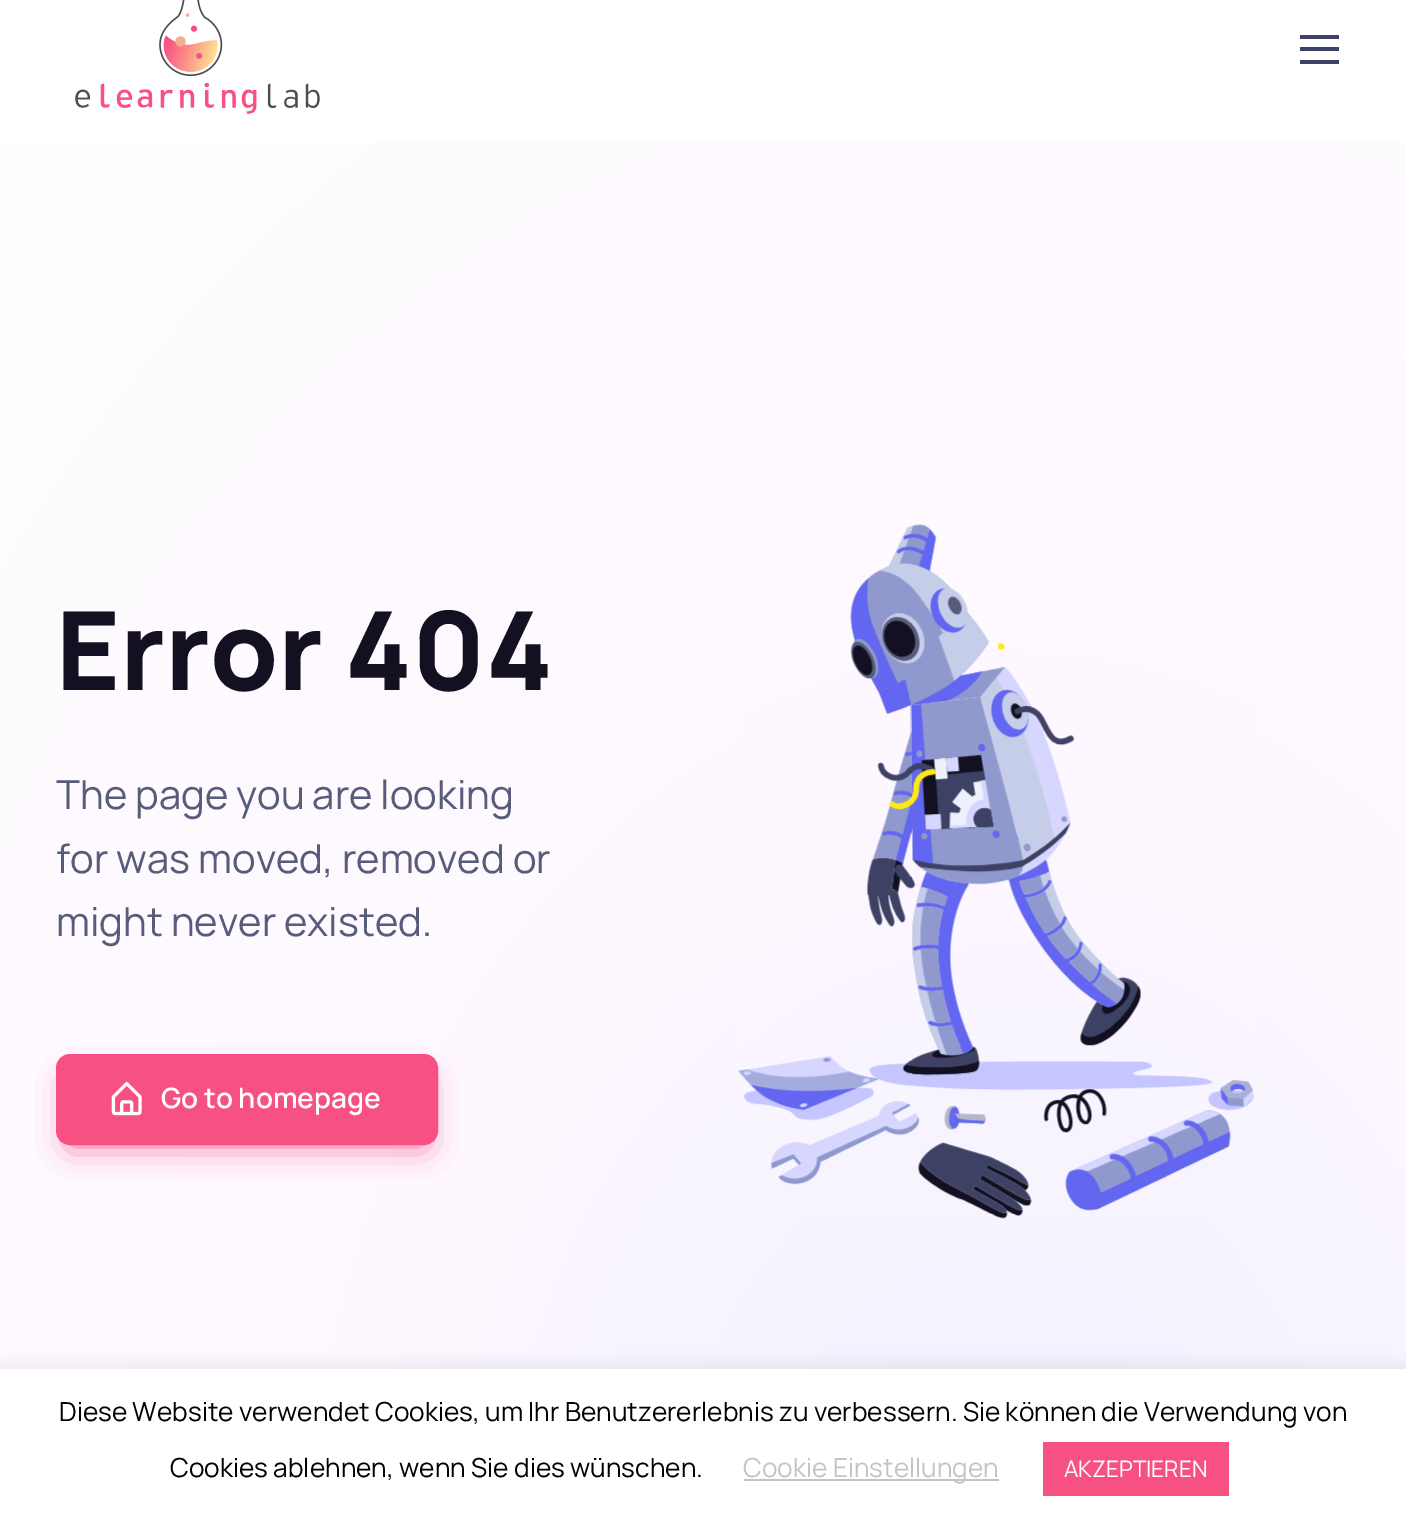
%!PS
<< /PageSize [1406 1525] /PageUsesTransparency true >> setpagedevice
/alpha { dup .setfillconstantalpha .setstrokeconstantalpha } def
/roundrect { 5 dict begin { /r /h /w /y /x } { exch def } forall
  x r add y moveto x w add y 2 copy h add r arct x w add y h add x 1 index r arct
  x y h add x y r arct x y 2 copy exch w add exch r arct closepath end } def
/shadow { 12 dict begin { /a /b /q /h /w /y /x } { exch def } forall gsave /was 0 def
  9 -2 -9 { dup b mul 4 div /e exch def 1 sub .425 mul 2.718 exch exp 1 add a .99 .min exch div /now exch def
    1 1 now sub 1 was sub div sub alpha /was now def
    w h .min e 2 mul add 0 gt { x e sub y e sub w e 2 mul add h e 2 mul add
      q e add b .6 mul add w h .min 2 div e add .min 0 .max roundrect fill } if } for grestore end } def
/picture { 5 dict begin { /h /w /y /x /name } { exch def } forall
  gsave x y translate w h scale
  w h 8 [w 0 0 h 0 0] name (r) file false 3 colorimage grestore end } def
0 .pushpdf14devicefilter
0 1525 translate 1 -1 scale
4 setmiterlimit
1 setgray
0 0 1406 1525 rectfill
(img1.rgb) 75 0 245 114 picture
0.243 0.259 0.396 setrgbcolor
1300 47 39 4 rectfill
1300 35 39 4 rectfill
1300 60 39 4 rectfill
gsave newpath 0 142 moveto 1406 142 lineto 1406 1369 lineto 0 1369 lineto closepath clip newpath 1005 1580 translate 2030 2651 scale
<< /ShadingType 3 /ColorSpace /DeviceRGB /Coords [0 0 0 0 0 1] /Extend [true true] /Function << /FunctionType 3 /Domain [0 1] /Functions [<< /FunctionType 2 /Domain [0 1] /C0 [0.941 0.945 0.996] /C1 [0.996 0.969 1] /N 1 >> << /FunctionType 2 /Domain [0 1] /C0 [0.996 0.969 1] /C1 [1 1 1] /N 1 >> << /FunctionType 2 /Domain [0 1] /C0 [1 1 1] /C1 [1 1 1] /N 1 >>] /Bounds [0.32 0.83] /Encode [0 1 0 1 0 1] >> >> shfill grestore
/Manrope-ExtraBold [109 0 0 -109 0 0] selectfont
0.075 0.063 0.133 setrgbcolor
56 690 moveto (Error 404) show
/Manrope-Regular [40 0 0 -40 0 0] selectfont
0.345 0.361 0.482 setrgbcolor
56 809 moveto (The page you are looking) show
56 873 moveto (for was moved, removed or) show
56 936 moveto (might never existed.) show
0.969 0.314 0.514 setrgbcolor
70 1082 354 63 0 16 0.9 shadow
57 1055 380 89 13 roundrect gsave fill grestore
2 setlinewidth
stroke
(img2.rgb) 111 1081 31 35 picture
/Manrope-SemiBold [28 0 0 -28 0 0] selectfont
1 setgray
161 1108 moveto (Go to homepage) show
(img3.rgb) 738 524 517 695 picture
0.675 0.671 0.671 setrgbcolor
0 1367 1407 157 0 9 0.3 shadow
1 setgray
0 1369 1406 156 rectfill
/Manrope-Regular [26.25 0 0 -26.25 0 0] selectfont
0 setgray
59 1421 moveto (Diese Website verwendet Cookies, um Ihr Benutzererlebnis zu verbessern. Sie können die Verwendung von) show
170 1477 moveto (Cookies ablehnen, wenn Sie dies wünschen.) show
0.769 setgray
744 1479 255 2 rectfill
743 1477 moveto (Cookie Einstellungen) show
0.969 0.314 0.514 setrgbcolor
1043 1442 186 54 rectfill
/Manrope-Regular [22.75 0 0 -22.75 0 0] selectfont
1 setgray
1064 1477 moveto (AKZEPTIEREN) show
.poppdf14devicefilter showpage
